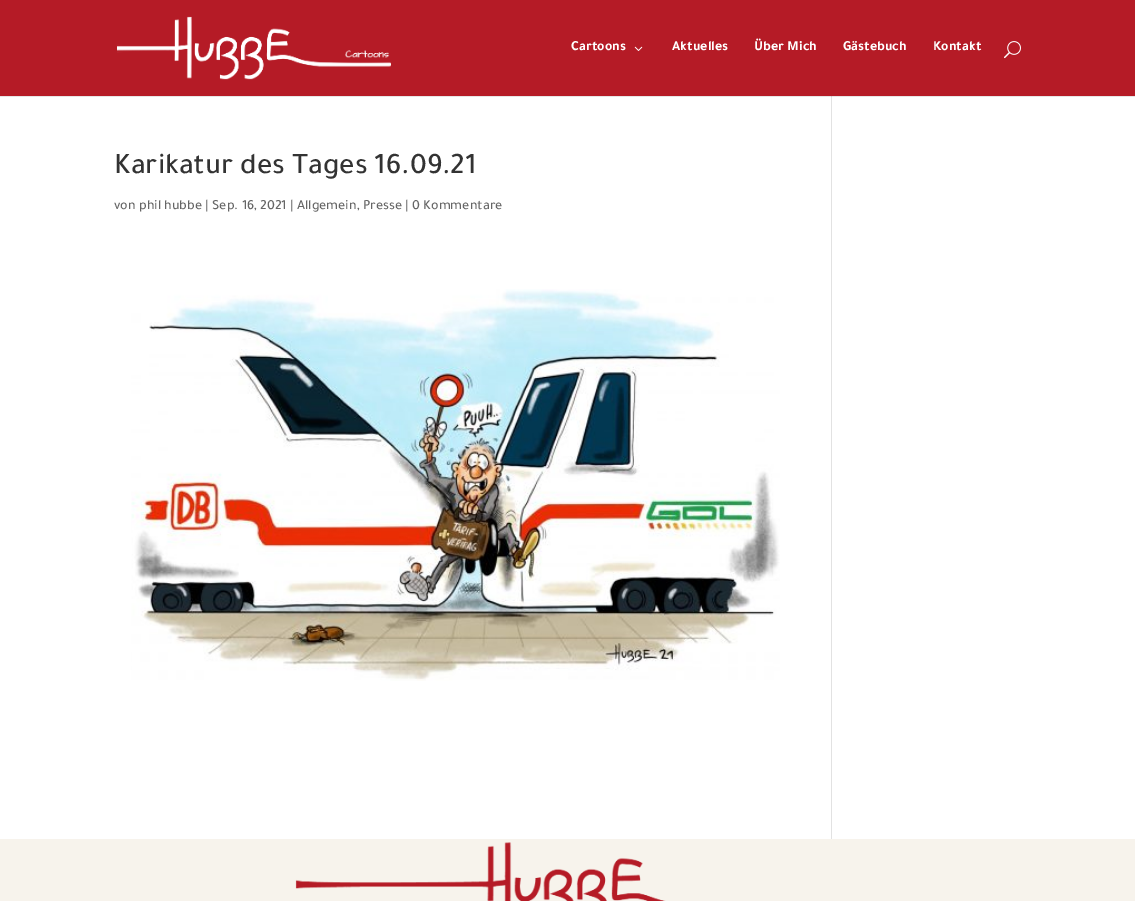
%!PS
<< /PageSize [1135 901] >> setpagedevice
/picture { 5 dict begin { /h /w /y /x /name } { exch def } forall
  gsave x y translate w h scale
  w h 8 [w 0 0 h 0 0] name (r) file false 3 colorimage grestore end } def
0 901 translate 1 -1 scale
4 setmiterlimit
1 setgray
0 0 1135 901 rectfill
0.902 setgray
0 96 1135 1 rectfill
0.71 0.106 0.149 setrgbcolor
0 0 1135 96 rectfill
(img1.rgb) 117 16 274 64 picture
/Tajawal-Bold [14 0 0 -14 0 0] selectfont
1 setgray
571 50 moveto (Cartoons) show
(img2.rgb) 634 46 9 5 picture
672 50 moveto (Aktuelles) show
754 50 moveto (Über Mich) show
843 50 moveto (Gästebuch) show
933 50 moveto (Kontakt) show
(img3.rgb) 1004 41 17 18 picture
/Tajawal-Medium [30 0 0 -30 0 0] selectfont
0.2 setgray
114 173 moveto (Karikatur des Tages 16.09.21) show
/Tajawal-Medium [14 0 0 -14 0 0] selectfont
0.4 setgray
114 209 moveto (von phil hubbe | Sep. 16, 2021 | Allgemein, Presse | 0 Kommentare) show
(img4.rgb) 131 289 649 392 picture
0.886 setgray
831 96 1 743 rectfill
0.796 setgray
831 96 1 1 rectfill
0.969 0.953 0.925 setrgbcolor
0 839 1135 62 rectfill
(img5.rgb) 295 842 371 59 picture
showpage
